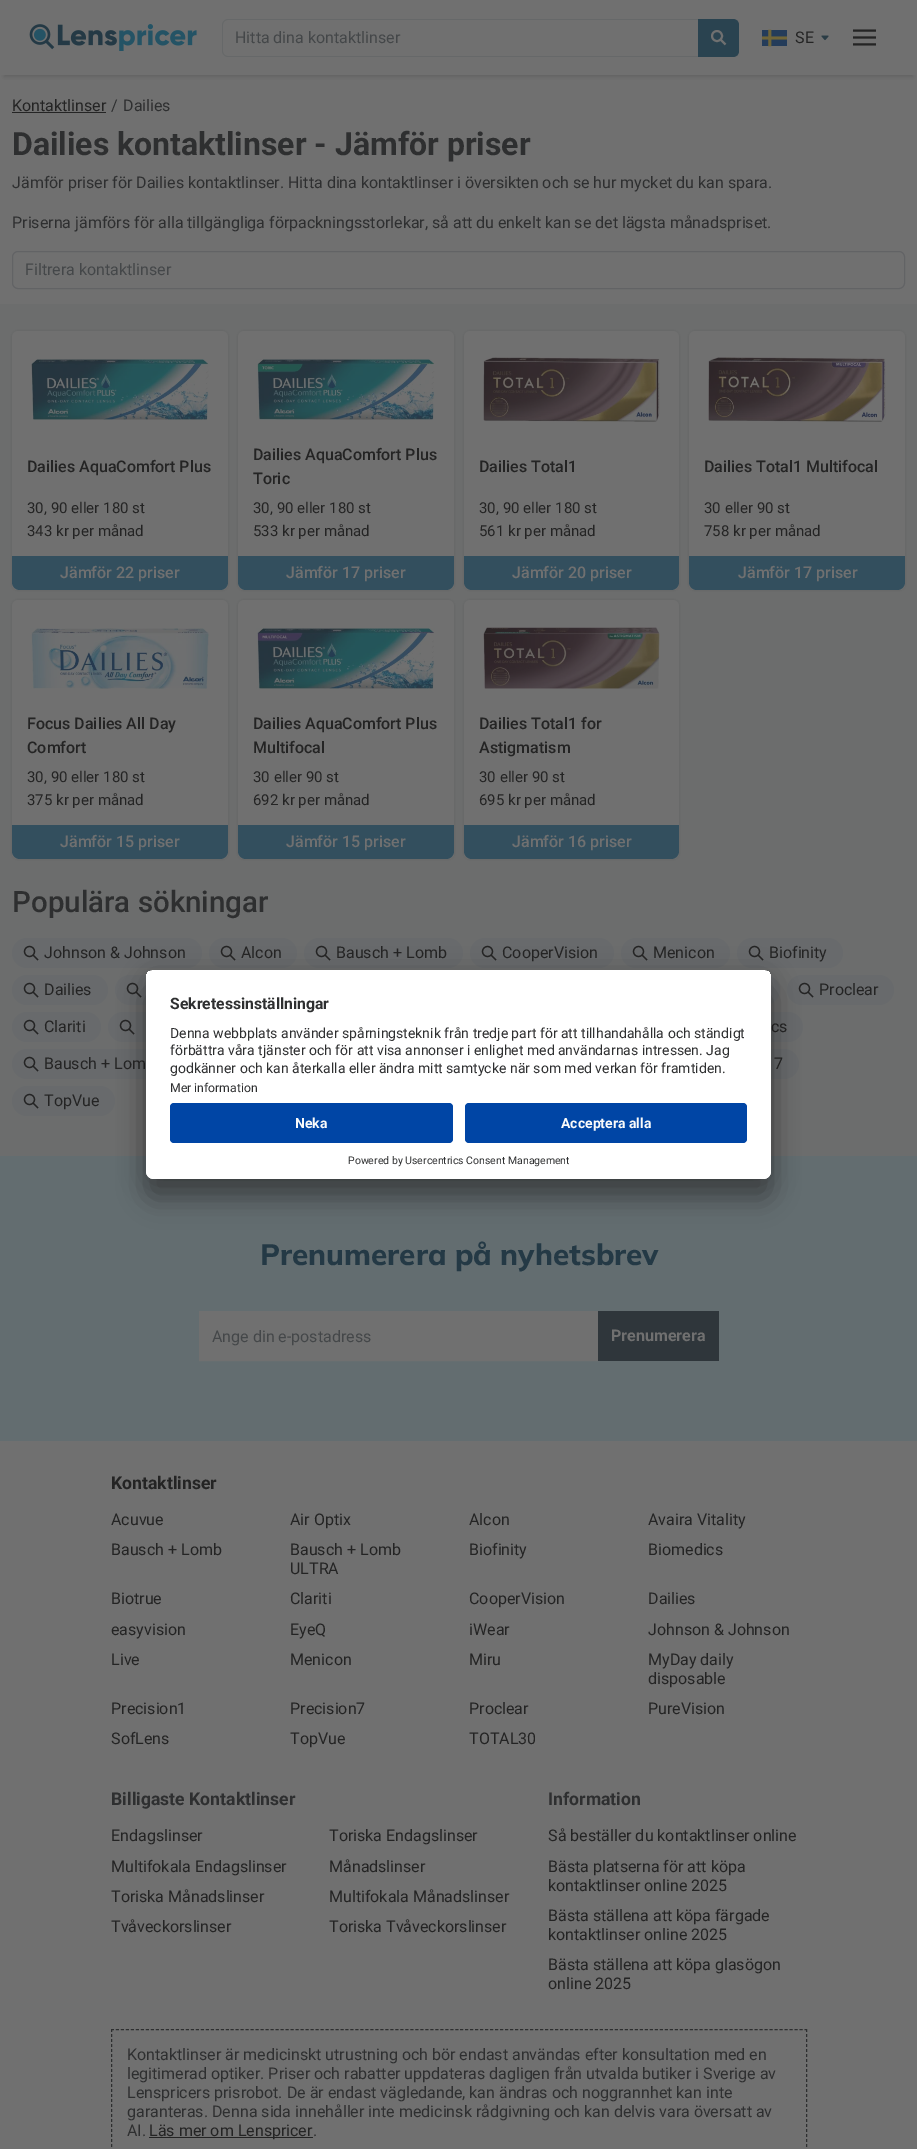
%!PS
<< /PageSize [917 2149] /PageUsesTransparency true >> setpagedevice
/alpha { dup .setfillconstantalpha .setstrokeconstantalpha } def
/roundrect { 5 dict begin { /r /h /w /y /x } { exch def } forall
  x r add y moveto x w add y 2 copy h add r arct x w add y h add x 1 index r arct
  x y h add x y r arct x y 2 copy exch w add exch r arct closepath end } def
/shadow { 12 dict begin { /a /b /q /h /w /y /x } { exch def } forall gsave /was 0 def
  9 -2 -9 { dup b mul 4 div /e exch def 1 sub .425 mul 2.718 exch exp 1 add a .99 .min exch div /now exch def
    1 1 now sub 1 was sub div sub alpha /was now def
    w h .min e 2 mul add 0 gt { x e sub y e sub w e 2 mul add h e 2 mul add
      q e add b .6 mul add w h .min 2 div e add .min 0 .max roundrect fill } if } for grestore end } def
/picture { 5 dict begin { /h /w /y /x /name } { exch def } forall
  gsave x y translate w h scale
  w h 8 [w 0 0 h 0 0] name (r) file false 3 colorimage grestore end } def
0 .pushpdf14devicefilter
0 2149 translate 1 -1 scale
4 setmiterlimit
0.424 0.427 0.427 setrgbcolor
0 0 917 2149 rectfill
0.439 setgray
0 75 917 229 rectfill
0.29 setgray
4 10 909 67 0 2 0.35 shadow
0.439 setgray
0 0 917 75 rectfill
(img1.rgb) 29 24 168 27 picture
0.4 0.408 0.412 setrgbcolor
newpath 228 19 moveto 699 19 lineto 699 57 lineto 228 57 lineto 225 57 222 54 222 51 curveto 222 25 lineto 222 22 225 19 228 19 curveto closepath 228 20 moveto 699 20 lineto 699 56 lineto 228 56 lineto 225 56 223 54 223 51 curveto 223 25 lineto 223 22 225 20 228 20 curveto closepath eofill
/Roboto-Regular [16 0 0 -16 0 0] selectfont
0.267 0.278 0.286 setrgbcolor
235 43 moveto (Hitta dina kontaktlinser) show
0.165 0.263 0.314 setrgbcolor
newpath 698 19 moveto 733 19 lineto 736.5 19 739 21.5 739 25 curveto 739 51 lineto 739 54.5 736.5 57 733 57 curveto 698 57 lineto closepath fill
0.439 setgray
1.9 setlinewidth
newpath 717 36 5 0 360 arc closepath stroke
newpath 725.5 44.5 moveto 720 39 lineto stroke
(img2.rgb) 762 29 25 18 picture
0.141 setgray
795 43 moveto (SE) show
(img3.rgb) 821 35 8 6 picture
(img4.rgb) 853 29 23 17 picture
12 111 moveto (Kontaktlinser) show
12 112 94 1 rectfill
0.18 0.184 0.188 setrgbcolor
111 111 moveto (/) show
123 111 moveto (Dailies) show
/Roboto-Bold [32 0 0 -32 0 0] selectfont
12 155 moveto (Dailies kontaktlinser - Jämför priser) show
/Roboto-Regular [16 0 0 -16 0 0] selectfont
12 188 moveto (Jämför priser för Dailies kontaktlinser. Hitta dina kontaktlinser i översikten och se hur mycket du kan spara.) show
12 228 moveto (Priserna jämförs för alla tillgängliga förpackningsstorlekar, så att du enkelt kan se det lägsta månadspriset.) show
0.384 0.388 0.396 setrgbcolor
1 setlinewidth
12.5 251.5 892 37 5.5 roundrect stroke
0.267 0.278 0.286 setrgbcolor
25 275 moveto (Filtrera kontaktlinser) show
0.18 setgray
12 331 216 259 6 2 0.2 shadow
0.439 setgray
12 331 216 259 6 roundrect fill
(img5.rgb) 30 359 179 61 picture
/Roboto-Medium [16 0 0 -16 0 0] selectfont
0.141 setgray
27 472 moveto (Dailies AquaComfort Plus) show
/Roboto-Regular [15 0 0 -15 0 0] selectfont
27 513 moveto (30, 90 eller 180 st) show
27 536 moveto (343 kr per månad) show
0.2 0.31 0.369 setrgbcolor
newpath 12 556 moveto 228 556 lineto 228 582 lineto 228 586.5 224.5 590 220 590 curveto 20 590 lineto 15.5 590 12 586.5 12 582 curveto closepath fill
/Roboto-Medium [16 0 0 -16 0 0] selectfont
0.439 setgray
60 578 moveto (Jämför 22 priser) show
0.18 setgray
238 331 216 259 6 2 0.2 shadow
0.439 setgray
238 331 216 259 6 roundrect fill
(img6.rgb) 256 359 179 61 picture
0.141 setgray
253 460 moveto (Dailies AquaComfort Plus) show
253 484 moveto (Toric) show
/Roboto-Regular [15 0 0 -15 0 0] selectfont
253 513 moveto (30, 90 eller 180 st) show
253 536 moveto (533 kr per månad) show
0.2 0.31 0.369 setrgbcolor
newpath 238 556 moveto 454 556 lineto 454 582 lineto 454 586.5 450.5 590 446 590 curveto 246 590 lineto 241.5 590 238 586.5 238 582 curveto closepath fill
/Roboto-Medium [16 0 0 -16 0 0] selectfont
0.439 setgray
286 578 moveto (Jämför 17 priser) show
0.18 setgray
464 331 215 259 6 2 0.2 shadow
0.439 setgray
464 331 215 259 6 roundrect fill
(img7.rgb) 483 357 177 65 picture
0.141 setgray
479 472 moveto (Dailies Total1) show
/Roboto-Regular [15 0 0 -15 0 0] selectfont
479 513 moveto (30, 90 eller 180 st) show
479 536 moveto (561 kr per månad) show
0.2 0.31 0.369 setrgbcolor
newpath 464 556 moveto 679 556 lineto 679 582 lineto 679 586.5 675.5 590 671 590 curveto 472 590 lineto 467.5 590 464 586.5 464 582 curveto closepath fill
/Roboto-Medium [16 0 0 -16 0 0] selectfont
0.439 setgray
512 578 moveto (Jämför 20 priser) show
0.18 setgray
689 331 216 259 6 2 0.2 shadow
0.439 setgray
689 331 216 259 6 roundrect fill
(img8.rgb) 708 357 178 65 picture
0.141 setgray
704 472 moveto (Dailies Total1 Multifocal) show
/Roboto-Regular [15 0 0 -15 0 0] selectfont
704 513 moveto (30 eller 90 st) show
704 536 moveto (758 kr per månad) show
0.2 0.31 0.369 setrgbcolor
newpath 689 556 moveto 905 556 lineto 905 582 lineto 905 586.5 901.5 590 897 590 curveto 697 590 lineto 692.5 590 689 586.5 689 582 curveto closepath fill
/Roboto-Medium [16 0 0 -16 0 0] selectfont
0.439 setgray
738 578 moveto (Jämför 17 priser) show
0.18 setgray
12 600 216 259 6 2 0.2 shadow
0.439 setgray
12 600 216 259 6 roundrect fill
(img9.rgb) 30 628 180 61 picture
0.141 setgray
27 729 moveto (Focus Dailies All Day) show
27 753 moveto (Comfort) show
/Roboto-Regular [15 0 0 -15 0 0] selectfont
27 782 moveto (30, 90 eller 180 st) show
27 805 moveto (375 kr per månad) show
0.2 0.31 0.369 setrgbcolor
newpath 12 825 moveto 228 825 lineto 228 851 lineto 228 855.5 224.5 859 220 859 curveto 20 859 lineto 15.5 859 12 855.5 12 851 curveto closepath fill
/Roboto-Medium [16 0 0 -16 0 0] selectfont
0.439 setgray
60 847 moveto (Jämför 15 priser) show
0.18 setgray
238 600 216 259 6 2 0.2 shadow
0.439 setgray
238 600 216 259 6 roundrect fill
(img10.rgb) 256 628 179 61 picture
0.141 setgray
253 729 moveto (Dailies AquaComfort Plus) show
253 753 moveto (Multifocal) show
/Roboto-Regular [15 0 0 -15 0 0] selectfont
253 782 moveto (30 eller 90 st) show
253 805 moveto (692 kr per månad) show
0.2 0.31 0.369 setrgbcolor
newpath 238 825 moveto 454 825 lineto 454 851 lineto 454 855.5 450.5 859 446 859 curveto 246 859 lineto 241.5 859 238 855.5 238 851 curveto closepath fill
/Roboto-Medium [16 0 0 -16 0 0] selectfont
0.439 setgray
286 847 moveto (Jämför 15 priser) show
0.18 setgray
464 600 215 259 6 2 0.2 shadow
0.439 setgray
464 600 215 259 6 roundrect fill
(img11.rgb) 482 627 178 62 picture
0.141 setgray
479 729 moveto (Dailies Total1 for) show
479 753 moveto (Astigmatism) show
/Roboto-Regular [15 0 0 -15 0 0] selectfont
479 782 moveto (30 eller 90 st) show
479 805 moveto (695 kr per månad) show
0.2 0.31 0.369 setrgbcolor
newpath 464 825 moveto 679 825 lineto 679 851 lineto 679 855.5 675.5 859 671 859 curveto 472 859 lineto 467.5 859 464 855.5 464 851 curveto closepath fill
/Roboto-Medium [16 0 0 -16 0 0] selectfont
0.439 setgray
512 847 moveto (Jämför 16 priser) show
/Roboto-Medium [29.5 0 0 -29.5 0 0] selectfont
0.18 0.184 0.188 setrgbcolor
12 912 moveto (Populära sökningar) show
0.408 0.416 0.424 setrgbcolor
12 938 190 30 15 roundrect fill
0.141 setgray
1.2 setlinewidth
newpath 29.5 951.5 5 0 360 arc closepath stroke
newpath 38 960 moveto 33 955 lineto stroke
/Roboto-Regular [16 0 0 -16 0 0] selectfont
44 958 moveto (Johnson & Johnson) show
0.408 0.416 0.424 setrgbcolor
209 938 88 30 15 roundrect fill
0.141 setgray
newpath 226.5 951.5 5 0 360 arc closepath stroke
newpath 235 960 moveto 230 955 lineto stroke
241 958 moveto (Alcon) show
0.408 0.416 0.424 setrgbcolor
304 938 159 30 15 roundrect fill
0.141 setgray
newpath 321.5 951.5 5 0 360 arc closepath stroke
newpath 330 960 moveto 325 955 lineto stroke
336 958 moveto (Bausch + Lomb) show
0.408 0.416 0.424 setrgbcolor
470 938 144 30 15 roundrect fill
0.141 setgray
newpath 487.5 951.5 5 0 360 arc closepath stroke
newpath 496 960 moveto 491 955 lineto stroke
502 958 moveto (CooperVision) show
0.408 0.416 0.424 setrgbcolor
621 938 109 30 15 roundrect fill
0.141 setgray
newpath 638.5 951.5 5 0 360 arc closepath stroke
newpath 647 960 moveto 642 955 lineto stroke
653 958 moveto (Menicon) show
0.408 0.416 0.424 setrgbcolor
737 938 106 30 15 roundrect fill
0.141 setgray
newpath 754.5 951.5 5 0 360 arc closepath stroke
newpath 763 960 moveto 758 955 lineto stroke
769 958 moveto (Biofinity) show
0.408 0.416 0.424 setrgbcolor
12 975 96 30 15 roundrect fill
0.141 setgray
newpath 29.5 988.5 5 0 360 arc closepath stroke
newpath 38 997 moveto 33 992 lineto stroke
44 995 moveto (Dailies) show
0.408 0.416 0.424 setrgbcolor
115 975 100 30 15 roundrect fill
0.141 setgray
newpath 132.5 988.5 5 0 360 arc closepath stroke
newpath 141 997 moveto 136 992 lineto stroke
0.408 0.416 0.424 setrgbcolor
655 975 125 30 15 roundrect fill
787 975 107 30 15 roundrect fill
0.141 setgray
newpath 804.5 988.5 5 0 360 arc closepath stroke
newpath 813 997 moveto 808 992 lineto stroke
819 995 moveto (Proclear) show
0.408 0.416 0.424 setrgbcolor
12 1012 89 30 15 roundrect fill
0.141 setgray
newpath 29.5 1025.5 5 0 360 arc closepath stroke
newpath 38 1034 moveto 33 1029 lineto stroke
44 1032 moveto (Clariti) show
0.408 0.416 0.424 setrgbcolor
108 1012 107 30 15 roundrect fill
0.141 setgray
newpath 125.5 1025.5 5 0 360 arc closepath stroke
newpath 134 1034 moveto 129 1029 lineto stroke
0.408 0.416 0.424 setrgbcolor
680 1012 123 30 15 roundrect fill
0.141 setgray
771 1032 moveto (cs) show
0.408 0.416 0.424 setrgbcolor
12 1049 212 30 15 roundrect fill
0.141 setgray
newpath 29.5 1062.5 5 0 360 arc closepath stroke
newpath 38 1071 moveto 33 1066 lineto stroke
44 1069 moveto (Bausch + Lom) show
0.408 0.416 0.424 setrgbcolor
676 1049 123 30 15 roundrect fill
0.141 setgray
774 1069 moveto (7) show
0.408 0.416 0.424 setrgbcolor
12 1086 103 30 15 roundrect fill
0.141 setgray
newpath 29.5 1099.5 5 0 360 arc closepath stroke
newpath 38 1108 moveto 33 1103 lineto stroke
44 1106 moveto (TopVue) show
0.388 0.427 0.439 setrgbcolor
0 1156 917 285 rectfill
0 setgray
146 990 625 209 8 14 0.3 shadow
146 975 625 209 8 13 0.22 shadow
1 setgray
146 970 625 209 8 roundrect fill
gsave
146 970 625 209 8 roundrect clip newpath
newpath 154 970 moveto 763 970 lineto 767.5 970 771 973.5 771 978 curveto 771 1095 lineto 146 1095 lineto 146 978 lineto 146 973.5 149.5 970 154 970 curveto closepath clip newpath
146 971 625 124 rectfill
grestore
/Roboto-Bold [15.75 0 0 -15.75 0 0] selectfont
0.18 0.184 0.188 setrgbcolor
170 1009 moveto (Sekretessinställningar) show
/Roboto-Regular [14 0 0 -14 0 0] selectfont
170 1038 moveto (Denna webbplats använder spårningsteknik från tredje part för att tillhandahålla och ständigt) show
170 1055 moveto (förbättra våra tjänster och för att visa annonser i enlighet med användarnas intressen. Jag) show
170 1073 moveto (godkänner och kan återkalla eller ändra mitt samtycke när som med verkan för framtiden.) show
/Roboto-Regular [12.25 0 0 -12.25 0 0] selectfont
170 1092 moveto (Mer information) show
1 setgray
newpath 146 1095 moveto 771 1095 lineto 771 1171 lineto 771 1175.5 767.5 1179 763 1179 curveto 154 1179 lineto 149.5 1179 146 1175.5 146 1171 curveto closepath fill
0 0.271 0.647 setrgbcolor
170 1103 283 40 4 roundrect fill
/Roboto-Bold [14 0 0 -14 0 0] selectfont
0.98 setgray
295 1128 moveto (Neka) show
0 0.271 0.647 setrgbcolor
465 1103 282 40 4 roundrect fill
0.98 setgray
561 1128 moveto (Acceptera alla) show
/Roboto-Regular [10.5 0 0 -10.5 0 0] selectfont
0.18 0.184 0.188 setrgbcolor
348 1164 moveto (Powered by Usercentrics Consent Management) show
/Mulish-ExtraBold [29.5 0 0 -29.5 0 0] selectfont
0.141 0.224 0.271 setrgbcolor
260 1265 moveto (Prenumerera på nyhetsbrev) show
0.439 setgray
newpath 199.5 1311.5 moveto 598.5 1311.5 lineto 598.5 1360.5 lineto 199.5 1360.5 lineto closepath gsave fill grestore
1 setlinewidth
stroke
/Roboto-Regular [16 0 0 -16 0 0] selectfont
0.267 0.278 0.286 setrgbcolor
212 1342 moveto (Ange din e-postadress) show
0.184 0.212 0.231 setrgbcolor
598 1311 121 50 rectfill
/Roboto-Bold [16 0 0 -16 0 0] selectfont
0.439 setgray
611 1341 moveto (Prenumerera) show
0 1441 917 708 rectfill
/Roboto-Bold [17.6 0 0 -17.6 0 0] selectfont
0.141 setgray
111 1489 moveto (Kontaktlinser) show
/Roboto-Regular [16 0 0 -16 0 0] selectfont
111 1525 moveto (Acuvue) show
290 1525 moveto (Air Optix) show
469 1525 moveto (Alcon) show
648 1525 moveto (Avaira Vitality) show
111 1555 moveto (Bausch + Lomb) show
290 1555 moveto (Bausch + Lomb) show
290 1574 moveto (ULTRA) show
469 1555 moveto (Biofinity) show
648 1555 moveto (Biomedics) show
111 1604 moveto (Biotrue) show
290 1604 moveto (Clariti) show
469 1604 moveto (CooperVision) show
648 1604 moveto (Dailies) show
111 1635 moveto (easyvision) show
290 1635 moveto (EyeQ) show
469 1635 moveto (iWear) show
648 1635 moveto (Johnson & Johnson) show
111 1665 moveto (Live) show
290 1665 moveto (Menicon) show
469 1665 moveto (Miru) show
648 1665 moveto (MyDay daily) show
648 1684 moveto (disposable) show
111 1714 moveto (Precision1) show
290 1714 moveto (Precision7) show
469 1714 moveto (Proclear) show
648 1714 moveto (PureVision) show
111 1744 moveto (SofLens) show
290 1744 moveto (TopVue) show
469 1744 moveto (TOTAL30) show
/Roboto-Bold [17.6 0 0 -17.6 0 0] selectfont
0.18 0.184 0.188 setrgbcolor
111 1805 moveto (Billigaste Kontaktlinser) show
/Roboto-Regular [16 0 0 -16 0 0] selectfont
0.141 setgray
111 1841 moveto (Endagslinser) show
329 1841 moveto (Toriska Endagslinser) show
111 1872 moveto (Multifokala Endagslinser) show
329 1872 moveto (Månadslinser) show
111 1902 moveto (Toriska Månadslinser) show
329 1902 moveto (Multifokala Månadslinser) show
111 1932 moveto (Tvåveckorslinser) show
329 1932 moveto (Toriska Tvåveckorslinser) show
/Roboto-Bold [17.6 0 0 -17.6 0 0] selectfont
0.18 0.184 0.188 setrgbcolor
548 1805 moveto (Information) show
/Roboto-Regular [16 0 0 -16 0 0] selectfont
0.141 setgray
548 1841 moveto (Så beställer du kontaktlinser online) show
548 1872 moveto (Bästa platserna för att köpa) show
548 1891 moveto (kontaktlinser online 2025) show
548 1921 moveto (Bästa ställena att köpa färgade) show
548 1940 moveto (kontaktlinser online 2025) show
548 1970 moveto (Bästa ställena att köpa glasögon) show
548 1989 moveto (online 2025) show
0.18 0.184 0.188 setrgbcolor
[3 1.99] 0 setdash
newpath 111 2029.5 moveto 807 2029.5 lineto stroke
[3 2] 0 setdash
newpath 806.5 2029 moveto 806.5 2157 lineto stroke
newpath 111.5 2029 moveto 111.5 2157 lineto stroke
127 2060 moveto (Kontaktlinser är medicinskt utrustning och bör endast användas efter konsultation med en) show
127 2079 moveto (legitimerad optiker. Priser och rabatter uppdateras dagligen från utvalda butiker i Sverige av) show
127 2098 moveto (Lenspricers prisrobot. De är endast vägledande, kan ändras och noggrannhet kan inte) show
127 2117 moveto (garanteras. Denna sida innehåller inte medicinsk rådgivning och kan delvis vara översatt av) show
127 2136 moveto (AI.) show
0.141 setgray
149 2137 164 1 rectfill
149 2136 moveto (Läs mer om Lenspricer) show
0.18 0.184 0.188 setrgbcolor
313 2136 moveto (.) show
.poppdf14devicefilter showpage
